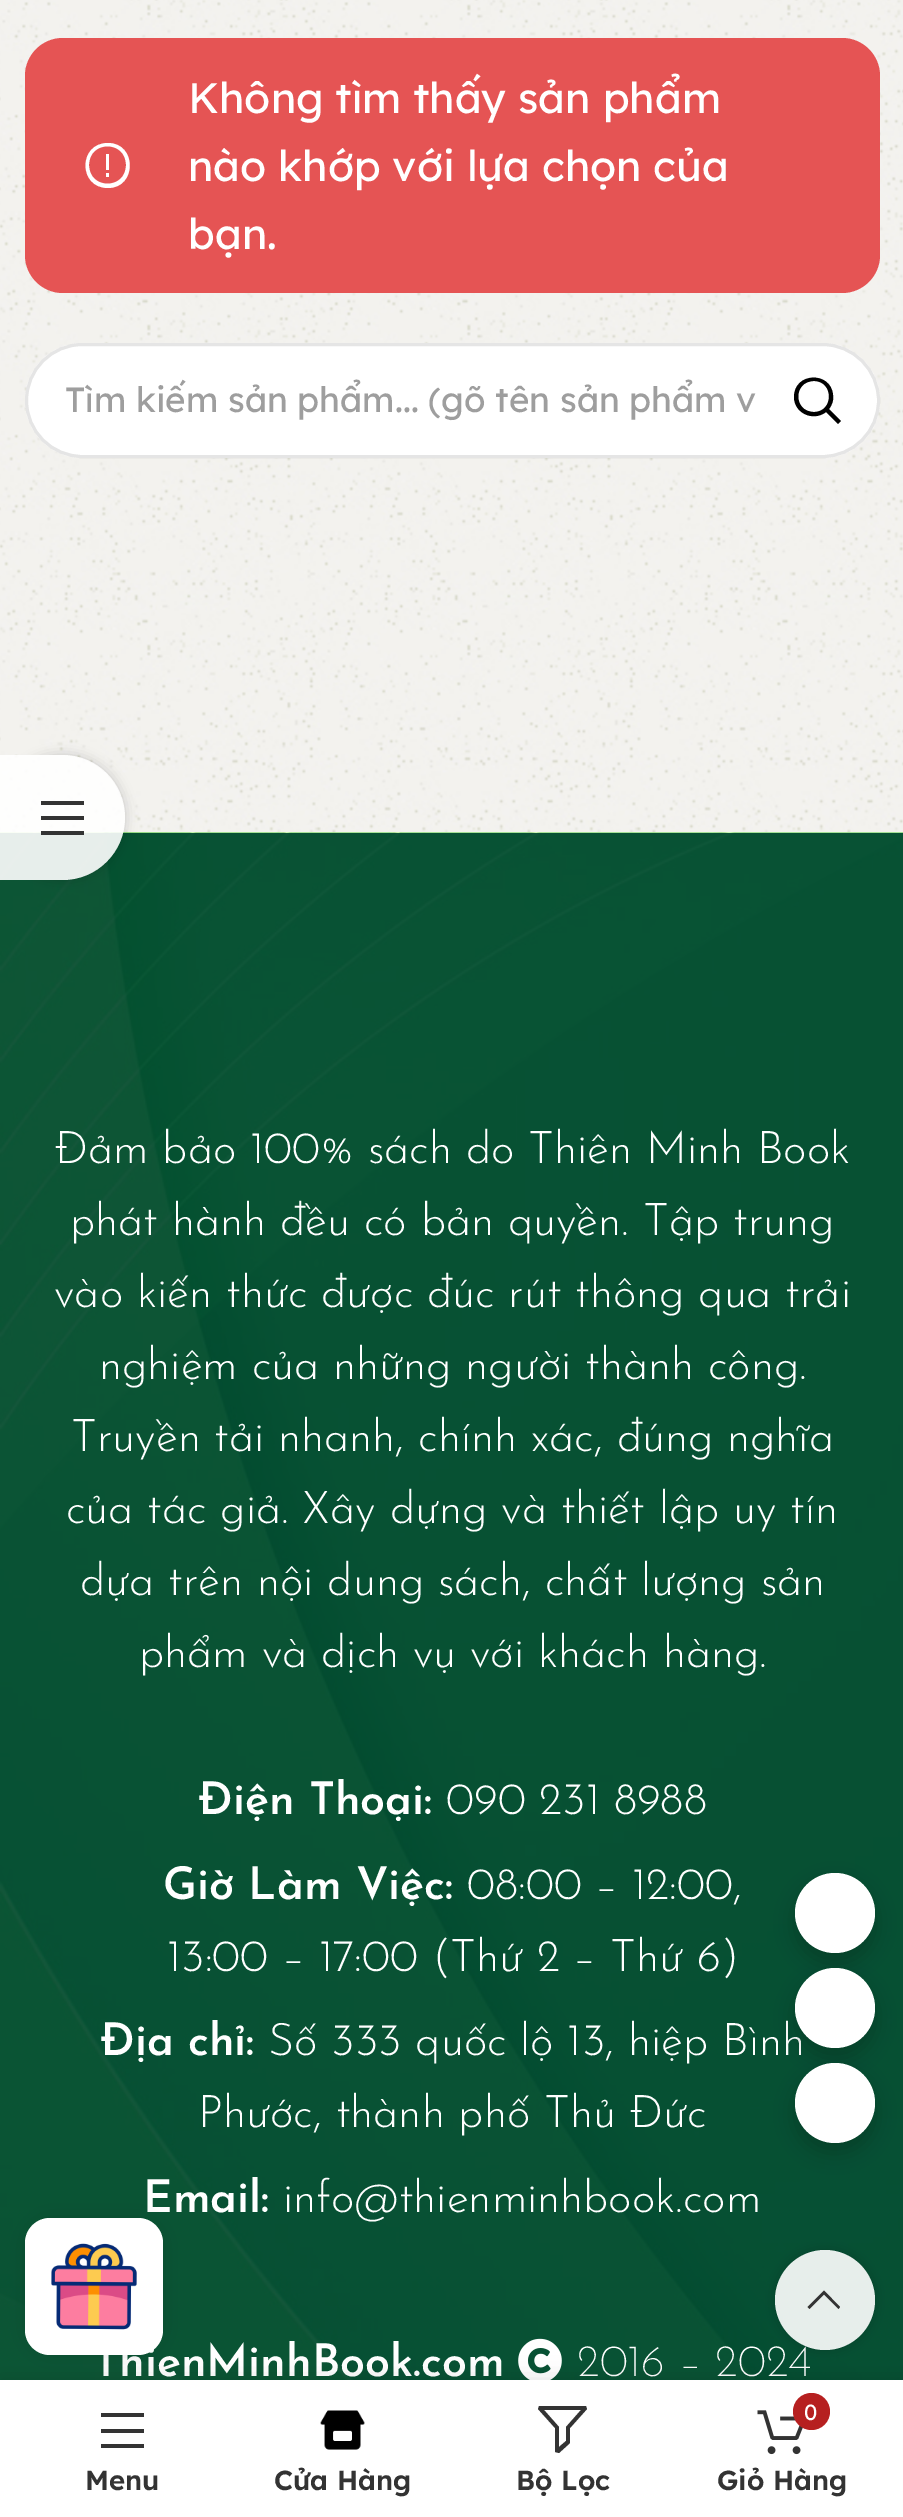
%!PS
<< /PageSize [903 2517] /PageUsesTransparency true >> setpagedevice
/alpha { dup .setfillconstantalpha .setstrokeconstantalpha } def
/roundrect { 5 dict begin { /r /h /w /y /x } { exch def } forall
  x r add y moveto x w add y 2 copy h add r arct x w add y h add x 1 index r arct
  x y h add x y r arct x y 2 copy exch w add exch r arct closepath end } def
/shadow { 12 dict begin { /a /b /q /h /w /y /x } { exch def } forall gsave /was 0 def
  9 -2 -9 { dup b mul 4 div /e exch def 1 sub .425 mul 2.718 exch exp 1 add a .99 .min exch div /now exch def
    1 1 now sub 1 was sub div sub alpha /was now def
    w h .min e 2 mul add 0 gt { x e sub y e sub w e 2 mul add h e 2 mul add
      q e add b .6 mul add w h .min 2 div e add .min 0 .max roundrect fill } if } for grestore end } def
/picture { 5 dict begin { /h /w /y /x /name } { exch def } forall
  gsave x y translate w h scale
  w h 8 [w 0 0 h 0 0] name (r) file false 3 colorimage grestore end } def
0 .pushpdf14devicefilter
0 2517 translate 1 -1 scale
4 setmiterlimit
1 setgray
0 0 903 2517 rectfill
(img1.rgb) 0 0 903 833 picture
0.898 0.329 0.329 setrgbcolor
25 38 855 255 38 roundrect fill
/Lexend-Regular [42.5 0 0 -42.5 0 0] selectfont
1 setgray
188 113 moveto (Không tìm thấy sản phẩm) show
newpath 106 154 moveto 106 170 lineto 109 170 lineto 109 154 lineto closepath 106 173 moveto 106 177 lineto 109 177 lineto 109 173 lineto closepath 108 143 moveto 78 143 78 188 108 188 curveto 137 188 137 143 108 143 curveto closepath 89 165 moveto 89 140 126 140 126 165 curveto 126 190 89 190 89 165 curveto closepath fill
188 181 moveto (nào khớp với lựa chọn của) show
188 249 moveto (bạn.) show
25 343 855 115 57.5 roundrect fill
0.1 alpha
0 setgray
3 setlinewidth
26.5 344.5 852 112 56 roundrect stroke
/Lexend-Regular [35 0 0 -35 0 0] selectfont
1 alpha
0.62 setgray
65 412 moveto (Tìm kiếm sản phẩm... \(gõ tên sản phẩm v) show
0 setgray
newpath 794 397 moveto 794 413 813 422 826 412 curveto 838 424 lineto 841 421 lineto 829 409 lineto 832 405 834 400 833 395 curveto 831 371 794 372 794 397 curveto closepath 814 412 moveto 793 412 793 381 814 381 curveto 834 381 834 412 814 412 curveto closepath fill
(img2.rgb) 0 832 903 1548 picture
gsave
newpath 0 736 moveto 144 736 lineto 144 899 lineto 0 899 lineto closepath 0 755 moveto 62.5 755 lineto 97 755 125 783 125 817.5 curveto 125 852 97 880 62.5 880 curveto 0 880 lineto closepath eoclip newpath
0 755 125 125 62.5 6 0.17 shadow
grestore
0.9 alpha
1 setgray
newpath 0 755 moveto 62.5 755 lineto 97 755 125 783 125 817.5 curveto 125 852 97 880 62.5 880 curveto 0 880 lineto closepath fill
1 alpha
0.2 setgray
newpath 41 805 moveto 84 805 lineto 84 801 lineto 41 801 lineto closepath 41 820 moveto 84 820 lineto 84 816 lineto 41 816 lineto closepath 41 835 moveto 84 835 lineto 84 831 lineto 41 831 lineto closepath fill
/JosefinSans-Light [45 0 0 -45 0 0] selectfont
1 setgray
55 1163 moveto (Đảm bảo 100% sách do Thiên Minh Book) show
70 1235 moveto (phát hành đều có bản quyền. Tập trung) show
54 1307 moveto (vào kiến thức được đúc rút thông qua trải) show
99 1379 moveto (nghiệm của những người thành công.) show
71 1451 moveto (Truyền tải nhanh, chính xác, đúng nghĩa) show
66 1523 moveto (của tác giả. Xây dựng và thiết lập uy tín) show
80 1595 moveto (dựa trên nội dung sách, chất lượng sản) show
139 1667 moveto (phẩm và dịch vụ với khách hàng.) show
/JosefinSans-SemiBold [45 0 0 -45 0 0] selectfont
198 1814 moveto (Điện Thoại:) show
/JosefinSans-Light [45 0 0 -45 0 0] selectfont
446 1814 moveto (090 231 8988) show
/JosefinSans-SemiBold [45 0 0 -45 0 0] selectfont
163 1899 moveto (Giờ Làm Việc:) show
/JosefinSans-Light [45 0 0 -45 0 0] selectfont
467 1899 moveto (08:00 – 12:00,) show
167 1971 moveto (13:00 – 17:00 \(Thứ 2 – Thứ 6\)) show
/JosefinSans-SemiBold [45 0 0 -45 0 0] selectfont
100 2055 moveto (Địa chỉ:) show
/JosefinSans-Light [45 0 0 -45 0 0] selectfont
268 2055 moveto (Số 333 quốc lộ 13, hiệp Bình) show
198 2127 moveto (Phước, thành phố Thủ Đức) show
/JosefinSans-SemiBold [45 0 0 -45 0 0] selectfont
143 2212 moveto (Email:) show
/JosefinSans-Light [45 0 0 -45 0 0] selectfont
283 2212 moveto (info@thienminhbook.com) show
/JosefinSans-SemiBold [45 0 0 -45 0 0] selectfont
93 2376 moveto (ThienMinhBook.com) show
(img3.rgb) 518 2338 44 42 picture
/JosefinSans-ExtraLight [45 0 0 -45 0 0] selectfont
577 2376 moveto (2016 – 2024) show
0 setgray
25 2218 138 137 25 12.5 0.09 shadow
1 setgray
25 2218 138 137 25 roundrect fill
(img4.rgb) 51 2243 86 87 picture
0 setgray
795 1883 80 80 40 10 0.2 shadow
1 setgray
newpath 835 1913 40 0 360 arc closepath fill
0 setgray
795 1978 80 80 40 10 0.2 shadow
1 setgray
newpath 835 2008 40 0 360 arc closepath fill
0 setgray
795 2073 80 80 40 10 0.2 shadow
1 setgray
newpath 835 2103 40 0 360 arc closepath fill
gsave
newpath 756 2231 moveto 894 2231 lineto 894 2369 lineto 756 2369 lineto closepath 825 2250 moveto 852.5 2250 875 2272.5 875 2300 curveto 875 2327.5 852.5 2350 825 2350 curveto 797.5 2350 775 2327.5 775 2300 curveto 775 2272.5 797.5 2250 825 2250 curveto closepath eoclip newpath
0 setgray
775 2250 100 100 50 6 0.17 shadow
grestore
0.9 alpha
newpath 825 2300 50 0 360 arc closepath fill
1 alpha
0.2 setgray
newpath 838.5 2309 moveto 840 2307 lineto 824 2290.5 lineto 807.5 2307 lineto 809.5 2309 lineto 824 2294.5 lineto closepath fill
0 setgray
0 2380 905 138 0 11 0.12 shadow
1 setgray
0 2380 903 137 rectfill
0.2 setgray
newpath 101 2417 moveto 144 2417 lineto 144 2413 lineto 101 2413 lineto closepath 101 2433 moveto 144 2433 lineto 144 2429 lineto 101 2429 lineto closepath 101 2448 moveto 144 2448 lineto 144 2444 lineto 101 2444 lineto closepath fill
/Lexend-SemiBold [27.5 0 0 -27.5 0 0] selectfont
85 2490 moveto (Menu) show
(img5.rgb) 320 2410 45 40 picture
274 2490 moveto (Cửa Hàng) show
newpath 539 2406 moveto 538 2409 lineto 555 2428 lineto 555 2452 lineto 559 2453 lineto 570 2443 lineto 570 2428 lineto 587 2409 lineto 586 2406 lineto closepath 544 2410 moveto 581 2410 lineto 566 2427 lineto 566 2441 lineto 559 2447 lineto 559 2427 lineto closepath fill
516 2490 moveto (Bộ Lọc) show
(img6.rgb) 757 2410 46 45 picture
0.714 0.125 0.125 setrgbcolor
newpath 811.5 2411.5 18.5 0 360 arc closepath fill
/Lexend-Regular [22 0 0 -22 0 0] selectfont
1 setgray
804 2420 moveto (0) show
/Lexend-SemiBold [27.5 0 0 -27.5 0 0] selectfont
0.2 setgray
717 2490 moveto (Giỏ Hàng) show
.poppdf14devicefilter showpage
